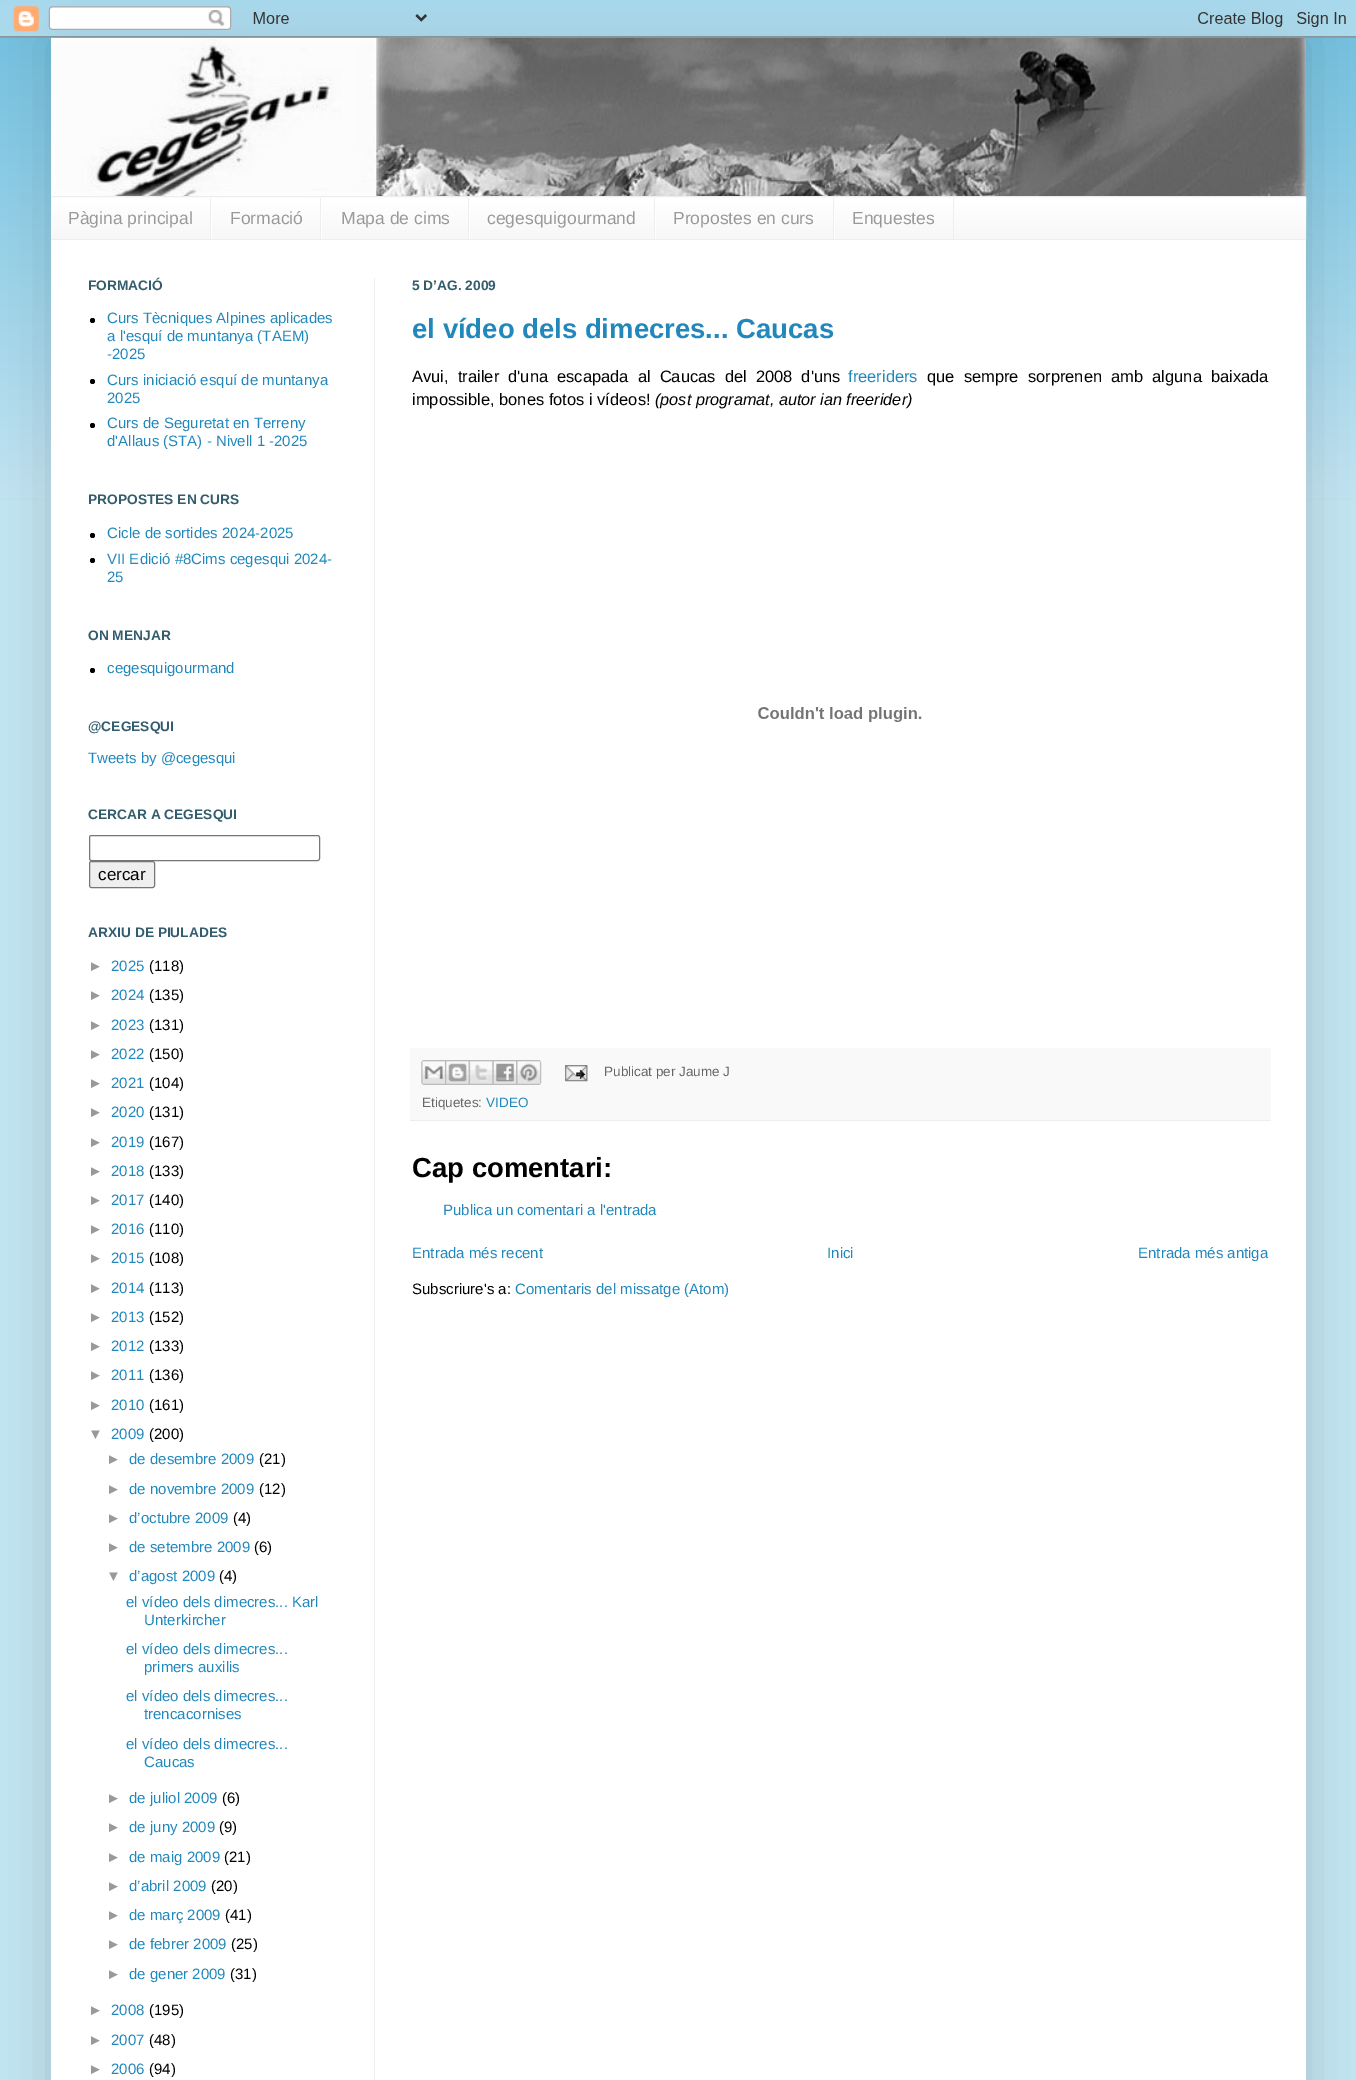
%!PS
<< /PageSize [1356 2080] /PageUsesTransparency true >> setpagedevice
/alpha { dup .setfillconstantalpha .setstrokeconstantalpha } def
/roundrect { 5 dict begin { /r /h /w /y /x } { exch def } forall
  x r add y moveto x w add y 2 copy h add r arct x w add y h add x 1 index r arct
  x y h add x y r arct x y 2 copy exch w add exch r arct closepath end } def
/shadow { 12 dict begin { /a /b /q /h /w /y /x } { exch def } forall gsave /was 0 def
  9 -2 -9 { dup b mul 4 div /e exch def 1 sub .425 mul 2.718 exch exp 1 add a .99 .min exch div /now exch def
    1 1 now sub 1 was sub div sub alpha /was now def
    w h .min e 2 mul add 0 gt { x e sub y e sub w e 2 mul add h e 2 mul add
      q e add b .6 mul add w h .min 2 div e add .min 0 .max roundrect fill } if } for grestore end } def
/picture { 5 dict begin { /h /w /y /x /name } { exch def } forall
  gsave x y translate w h scale
  w h 8 [w 0 0 h 0 0] name (r) file false 3 colorimage grestore end } def
0 .pushpdf14devicefilter
0 2080 translate 1 -1 scale
4 setmiterlimit
0.757 0.898 0.945 setrgbcolor
0 0 1356 2080 rectfill
0.4 0.733 0.867 setrgbcolor
0 0 1356 500 rectfill
(img1.rgb) 0 0 1356 500 picture
0 setgray
51 38 1255 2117 0 25 0.15 shadow
1 setgray
51 38 1255 2042 rectfill
(img3.rgb) 51 37 1255 159 picture
(img2.rgb) 0 0 1356 38 picture
0.961 setgray
51 197 1255 42 rectfill
(img4.rgb) 51 197 1256 43 picture
0.933 setgray
51 196 1255 1 rectfill
51 239 1255 1 rectfill
210 198 1 41 rectfill
/LiberationSans-Regular [17.5 0 0 -17.5 0 0] selectfont
0.6 setgray
68 224 moveto (Pàgina principal) show
0.933 setgray
320 198 1 41 rectfill
1 setgray
211 211 1 28 rectfill
0.6 setgray
230 224 moveto (Formació) show
0.933 setgray
468 198 1 41 rectfill
1 setgray
321 211 1 28 rectfill
0.6 setgray
341 224 moveto (Mapa de cims) show
0.933 setgray
654 198 1 41 rectfill
1 setgray
469 211 1 28 rectfill
0.6 setgray
487 224 moveto (cegesquigourmand) show
0.933 setgray
833 198 1 41 rectfill
1 setgray
655 211 1 28 rectfill
0.6 setgray
673 224 moveto (Propostes en curs) show
0.933 setgray
953 198 1 41 rectfill
1 setgray
834 211 1 28 rectfill
0.6 setgray
852 224 moveto (Enquestes) show
/LiberationSans-Bold [13.75 0 0 -13.75 0 0] selectfont
0.2 0.365 0.431 setrgbcolor
88 290 moveto (FORMACIÓ) show
0 setgray
newpath 92.5 320.5 2.5 0 360 arc closepath fill
/LiberationSans-Regular [15 0 0 -15 0 0] selectfont
0.133 0.533 0.733 setrgbcolor
107 323 moveto (Curs Tècniques Alpines aplicades) show
107 341 moveto (a l'esquí de muntanya \(TAEM\)) show
107 359 moveto (-2025) show
0 setgray
newpath 92.5 381.5 2.5 0 360 arc closepath fill
0.133 0.533 0.733 setrgbcolor
107 385 moveto (Curs iniciació esquí de muntanya) show
107 403 moveto (2025) show
0 setgray
newpath 92.5 425.5 2.5 0 360 arc closepath fill
0.133 0.533 0.733 setrgbcolor
107 428 moveto (Curs de Seguretat en Terreny) show
107 446 moveto (d'Allaus \(STA\) - Nivell 1 -2025) show
/LiberationSans-Bold [13.75 0 0 -13.75 0 0] selectfont
0.2 0.365 0.431 setrgbcolor
88 504 moveto (PROPOSTES EN CURS) show
0 setgray
newpath 92.5 535.5 2.5 0 360 arc closepath fill
/LiberationSans-Regular [15 0 0 -15 0 0] selectfont
0.133 0.533 0.733 setrgbcolor
107 538 moveto (Cicle de sortides 2024-2025) show
0 setgray
newpath 92.5 560.5 2.5 0 360 arc closepath fill
0.133 0.533 0.733 setrgbcolor
107 564 moveto (VII Edició #8Cims cegesqui 2024-) show
107 582 moveto (25) show
/LiberationSans-Bold [13.75 0 0 -13.75 0 0] selectfont
0.2 0.365 0.431 setrgbcolor
88 640 moveto (ON MENJAR) show
0 setgray
newpath 92.5 670.5 2.5 0 360 arc closepath fill
/LiberationSans-Regular [15 0 0 -15 0 0] selectfont
0.133 0.533 0.733 setrgbcolor
107 673 moveto (cegesquigourmand) show
/LiberationSans-Bold [13.75 0 0 -13.75 0 0] selectfont
0.2 0.365 0.431 setrgbcolor
88 731 moveto (@CEGESQUI) show
/LiberationSans-Regular [15 0 0 -15 0 0] selectfont
0.133 0.533 0.733 setrgbcolor
88 763 moveto (Tweets by @cegesqui) show
/LiberationSans-Bold [13.75 0 0 -13.75 0 0] selectfont
0.2 0.365 0.431 setrgbcolor
88 819 moveto (CERCAR A CEGESQUI) show
0.463 setgray
89.5 835.5 230 25 2 roundrect stroke
0.937 setgray
89.5 861.5 65 26 2 roundrect gsave fill grestore
0.463 setgray
stroke
/LiberationSans-Regular [17 0 0 -17 0 0] selectfont
0 setgray
98 880 moveto (cercar) show
/LiberationSans-Bold [13.75 0 0 -13.75 0 0] selectfont
0.2 0.365 0.431 setrgbcolor
88 937 moveto (ARXIU DE PIULADES) show
/LiberationSans-Regular [15 0 0 -15 0 0] selectfont
0.6 setgray
88 971 moveto (►) show
0.133 0.533 0.733 setrgbcolor
111 971 moveto (2025) show
0 setgray
149 971 moveto (\(118\)) show
0.6 setgray
88 1000 moveto (►) show
0.133 0.533 0.733 setrgbcolor
111 1000 moveto (2024) show
0 setgray
149 1000 moveto (\(135\)) show
0.6 setgray
88 1030 moveto (►) show
0.133 0.533 0.733 setrgbcolor
111 1030 moveto (2023) show
0 setgray
149 1030 moveto (\(131\)) show
0.6 setgray
88 1059 moveto (►) show
0.133 0.533 0.733 setrgbcolor
111 1059 moveto (2022) show
0 setgray
149 1059 moveto (\(150\)) show
0.6 setgray
88 1088 moveto (►) show
0.133 0.533 0.733 setrgbcolor
111 1088 moveto (2021) show
0 setgray
149 1088 moveto (\(104\)) show
0.6 setgray
88 1117 moveto (►) show
0.133 0.533 0.733 setrgbcolor
111 1117 moveto (2020) show
0 setgray
149 1117 moveto (\(131\)) show
0.6 setgray
88 1147 moveto (►) show
0.133 0.533 0.733 setrgbcolor
111 1147 moveto (2019) show
0 setgray
149 1147 moveto (\(167\)) show
0.6 setgray
88 1176 moveto (►) show
0.133 0.533 0.733 setrgbcolor
111 1176 moveto (2018) show
0 setgray
149 1176 moveto (\(133\)) show
0.6 setgray
88 1205 moveto (►) show
0.133 0.533 0.733 setrgbcolor
111 1205 moveto (2017) show
0 setgray
149 1205 moveto (\(140\)) show
0.6 setgray
88 1234 moveto (►) show
0.133 0.533 0.733 setrgbcolor
111 1234 moveto (2016) show
0 setgray
149 1234 moveto (\(110\)) show
0.6 setgray
88 1263 moveto (►) show
0.133 0.533 0.733 setrgbcolor
111 1263 moveto (2015) show
0 setgray
149 1263 moveto (\(108\)) show
0.6 setgray
88 1293 moveto (►) show
0.133 0.533 0.733 setrgbcolor
111 1293 moveto (2014) show
0 setgray
149 1293 moveto (\(113\)) show
0.6 setgray
88 1322 moveto (►) show
0.133 0.533 0.733 setrgbcolor
111 1322 moveto (2013) show
0 setgray
149 1322 moveto (\(152\)) show
0.6 setgray
88 1351 moveto (►) show
0.133 0.533 0.733 setrgbcolor
111 1351 moveto (2012) show
0 setgray
149 1351 moveto (\(133\)) show
0.6 setgray
88 1380 moveto (►) show
0.133 0.533 0.733 setrgbcolor
111 1380 moveto (2011) show
0 setgray
149 1380 moveto (\(136\)) show
0.6 setgray
88 1410 moveto (►) show
0.133 0.533 0.733 setrgbcolor
111 1410 moveto (2010) show
0 setgray
149 1410 moveto (\(161\)) show
0.6 setgray
88 1439 moveto (▼) show
0.133 0.533 0.733 setrgbcolor
111 1439 moveto (2009) show
0 setgray
149 1439 moveto (\(200\)) show
0.6 setgray
106 1464 moveto (►) show
0.133 0.533 0.733 setrgbcolor
129 1464 moveto (de desembre 2009) show
0 setgray
259 1464 moveto (\(21\)) show
0.6 setgray
106 1494 moveto (►) show
0.133 0.533 0.733 setrgbcolor
129 1494 moveto (de novembre 2009) show
0 setgray
259 1494 moveto (\(12\)) show
0.6 setgray
106 1523 moveto (►) show
0.133 0.533 0.733 setrgbcolor
129 1523 moveto (d’octubre 2009) show
0 setgray
233 1523 moveto (\(4\)) show
0.6 setgray
106 1552 moveto (►) show
0.133 0.533 0.733 setrgbcolor
129 1552 moveto (de setembre 2009) show
0 setgray
254 1552 moveto (\(6\)) show
0.6 setgray
106 1581 moveto (▼) show
0.133 0.533 0.733 setrgbcolor
129 1581 moveto (d’agost 2009) show
0 setgray
219 1581 moveto (\(4\)) show
0.133 0.533 0.733 setrgbcolor
126 1607 moveto (el vídeo dels dimecres... Karl) show
144 1625 moveto (Unterkircher) show
126 1654 moveto (el vídeo dels dimecres...) show
144 1672 moveto (primers auxilis) show
126 1701 moveto (el vídeo dels dimecres...) show
144 1719 moveto (trencacornises) show
126 1749 moveto (el vídeo dels dimecres...) show
144 1767 moveto (Caucas) show
0.6 setgray
106 1803 moveto (►) show
0.133 0.533 0.733 setrgbcolor
129 1803 moveto (de juliol 2009) show
0 setgray
222 1803 moveto (\(6\)) show
0.6 setgray
106 1832 moveto (►) show
0.133 0.533 0.733 setrgbcolor
129 1832 moveto (de juny 2009) show
0 setgray
219 1832 moveto (\(9\)) show
0.6 setgray
106 1862 moveto (►) show
0.133 0.533 0.733 setrgbcolor
129 1862 moveto (de maig 2009) show
0 setgray
224 1862 moveto (\(21\)) show
0.6 setgray
106 1891 moveto (►) show
0.133 0.533 0.733 setrgbcolor
129 1891 moveto (d’abril 2009) show
0 setgray
211 1891 moveto (\(20\)) show
0.6 setgray
106 1920 moveto (►) show
0.133 0.533 0.733 setrgbcolor
129 1920 moveto (de març 2009) show
0 setgray
225 1920 moveto (\(41\)) show
0.6 setgray
106 1949 moveto (►) show
0.133 0.533 0.733 setrgbcolor
129 1949 moveto (de febrer 2009) show
0 setgray
231 1949 moveto (\(25\)) show
0.6 setgray
106 1979 moveto (►) show
0.133 0.533 0.733 setrgbcolor
129 1979 moveto (de gener 2009) show
0 setgray
230 1979 moveto (\(31\)) show
0.6 setgray
88 2015 moveto (►) show
0.133 0.533 0.733 setrgbcolor
111 2015 moveto (2008) show
0 setgray
149 2015 moveto (\(195\)) show
0.6 setgray
88 2045 moveto (►) show
0.133 0.533 0.733 setrgbcolor
111 2045 moveto (2007) show
0 setgray
149 2045 moveto (\(48\)) show
0.6 setgray
88 2074 moveto (►) show
0.133 0.533 0.733 setrgbcolor
111 2074 moveto (2006) show
0 setgray
149 2074 moveto (\(94\)) show
/LiberationSans-Bold [13.75 0 0 -13.75 0 0] selectfont
0.2 0.365 0.431 setrgbcolor
412 290 moveto (5 D’AG. 2009) show
/LiberationSans-Bold [27.5 0 0 -27.5 0 0] selectfont
0.133 0.533 0.733 setrgbcolor
412 338 moveto (el vídeo dels dimecres... Caucas) show
/LiberationSans-Regular [16.5 0 0 -16.5 0 0] selectfont
0 setgray
412 382 moveto 4.5 0 32 (Avui, trailer d'una escapada al Caucas del 2008 d'uns) widthshow
0.133 0.533 0.733 setrgbcolor
848 382 moveto (freeriders) show
0 setgray
927 382 moveto 4.5 0 32 (que sempre sorprenen amb alguna baixada) widthshow
412 405 moveto (impossible, bones fotos i vídeos!) show
/LiberationSans-Italic [16.25 0 0 -16.25 0 0] selectfont
655 405 moveto (\(post programat, autor ian freerider\)) show
(img5.rgb) 758 707 164 15 picture
0.976 setgray
410 1048 861 72 rectfill
0.933 setgray
410 1120 861 1 rectfill
(img6.rgb) 421 1060 24 25 picture
(img7.rgb) 445 1060 24 25 picture
(img8.rgb) 468 1060 25 25 picture
(img9.rgb) 492 1060 25 25 picture
(img10.rgb) 516 1060 26 25 picture
(img11.rgb) 565 1065 23 17 picture
/LiberationSans-Regular [13.5 0 0 -13.5 0 0] selectfont
0.4 setgray
604 1076 moveto (Publicat per Jaume J) show
422 1107 moveto (Etiquetes:) show
0.133 0.533 0.733 setrgbcolor
486 1107 moveto (VIDEO) show
/LiberationSans-Bold [27.5 0 0 -27.5 0 0] selectfont
0 setgray
412 1177 moveto (Cap comentari:) show
/LiberationSans-Regular [15 0 0 -15 0 0] selectfont
0.133 0.533 0.733 setrgbcolor
443 1215 moveto (Publica un comentari a l'entrada) show
412 1258 moveto (Entrada més recent) show
827 1258 moveto (Inici) show
1138 1258 moveto (Entrada més antiga) show
0 setgray
412 1294 moveto (Subscriure's a:) show
0.133 0.533 0.733 setrgbcolor
515 1294 moveto (Comentaris del missatge \(Atom\)) show
0.933 setgray
374 278 1 1802 rectfill
.poppdf14devicefilter showpage
